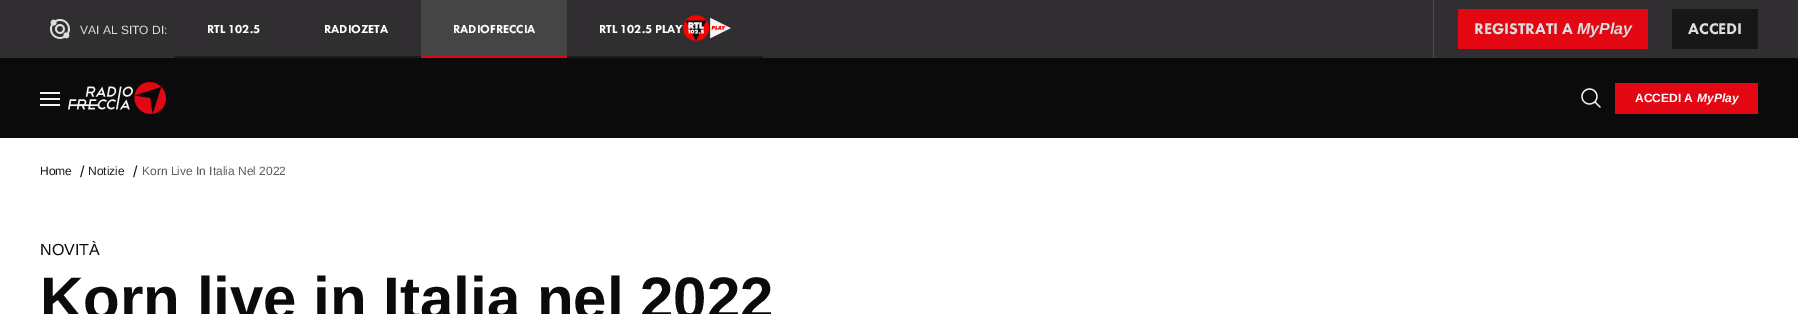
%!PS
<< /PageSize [1798 314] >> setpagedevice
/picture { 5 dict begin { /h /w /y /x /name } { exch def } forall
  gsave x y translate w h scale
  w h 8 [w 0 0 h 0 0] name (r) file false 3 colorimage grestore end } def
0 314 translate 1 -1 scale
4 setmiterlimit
1 setgray
0 0 1798 314 rectfill
0.188 0.18 0.188 setrgbcolor
0 0 1798 58 rectfill
(img1.rgb) 49 19 21 20 picture
/LiberationSans-Regular [12 0 0 -12 0 0] selectfont
0.871 setgray
80 34 moveto (VAI AL SITO DI:) show
0.11 setgray
175 56 246 2 rectfill
/FuturaPT-Black [12 0 0 -12 0 0] selectfont
1 setgray
207 33 moveto (RTL 102.5) show
324 33 moveto (RADIOZETA) show
0.271 setgray
421 0 146 56 rectfill
0.89 0.024 0.075 setrgbcolor
421 56 146 2 rectfill
1 setgray
453 33 moveto (RADIOFRECCIA) show
0.11 setgray
567 56 196 2 rectfill
1 setgray
599 33 moveto (RTL 102.5 PLAY) show
(img2.rgb) 683 15 48 26 picture
0.31 setgray
1433 0 1 58 rectfill
0.89 0.024 0.075 setrgbcolor
1458 9 190 40 rectfill
/FuturaPT-Black [16 0 0 -16 0 0] selectfont
0.871 setgray
1474 34 moveto (REGISTRATI A) show
/LiberationSans-BoldItalic [16 0 0 -16 0 0] selectfont
1577 34 moveto (MyPlay) show
0.09 setgray
1672 9 86 40 rectfill
/FuturaPT-Black [16 0 0 -16 0 0] selectfont
0.871 setgray
1688 34 moveto (ACCEDI) show
0.043 setgray
0 58 1798 80 rectfill
0.965 setgray
40 92 20 2 rectfill
40 98 20 2 rectfill
40 104 20 2 rectfill
(img3.rgb) 68 82 98 32 picture
(img4.rgb) 1581 88 20 20 picture
0.89 0.024 0.075 setrgbcolor
1615 83 143 31 rectfill
/LiberationSans-Bold [12 0 0 -12 0 0] selectfont
1 setgray
1635 102 moveto (ACCEDI A) show
/LiberationSans-BoldItalic [12 0 0 -12 0 0] selectfont
1697 102 moveto (MyPlay) show
/LiberationSans-Regular [12 0 0 -12 0 0] selectfont
0.11 setgray
40 175 moveto (Home) show
/LiberationSans-Regular [16 0 0 -16 0 0] selectfont
80 177 moveto (/) show
/LiberationSans-Regular [12 0 0 -12 0 0] selectfont
88 175 moveto (Notizie) show
/LiberationSans-Regular [16 0 0 -16 0 0] selectfont
133 177 moveto (/) show
/LiberationSans-Regular [12 0 0 -12 0 0] selectfont
0.365 setgray
142 175 moveto (Korn Live In Italia Nel 2022) show
/LiberationSans-Regular [16 0 0 -16 0 0] selectfont
0.043 setgray
40 255 moveto (NOVITÀ) show
/LiberationSans-Bold [60 0 0 -60 0 0] selectfont
40 319 moveto (Korn live in Italia nel 2022) show
showpage
